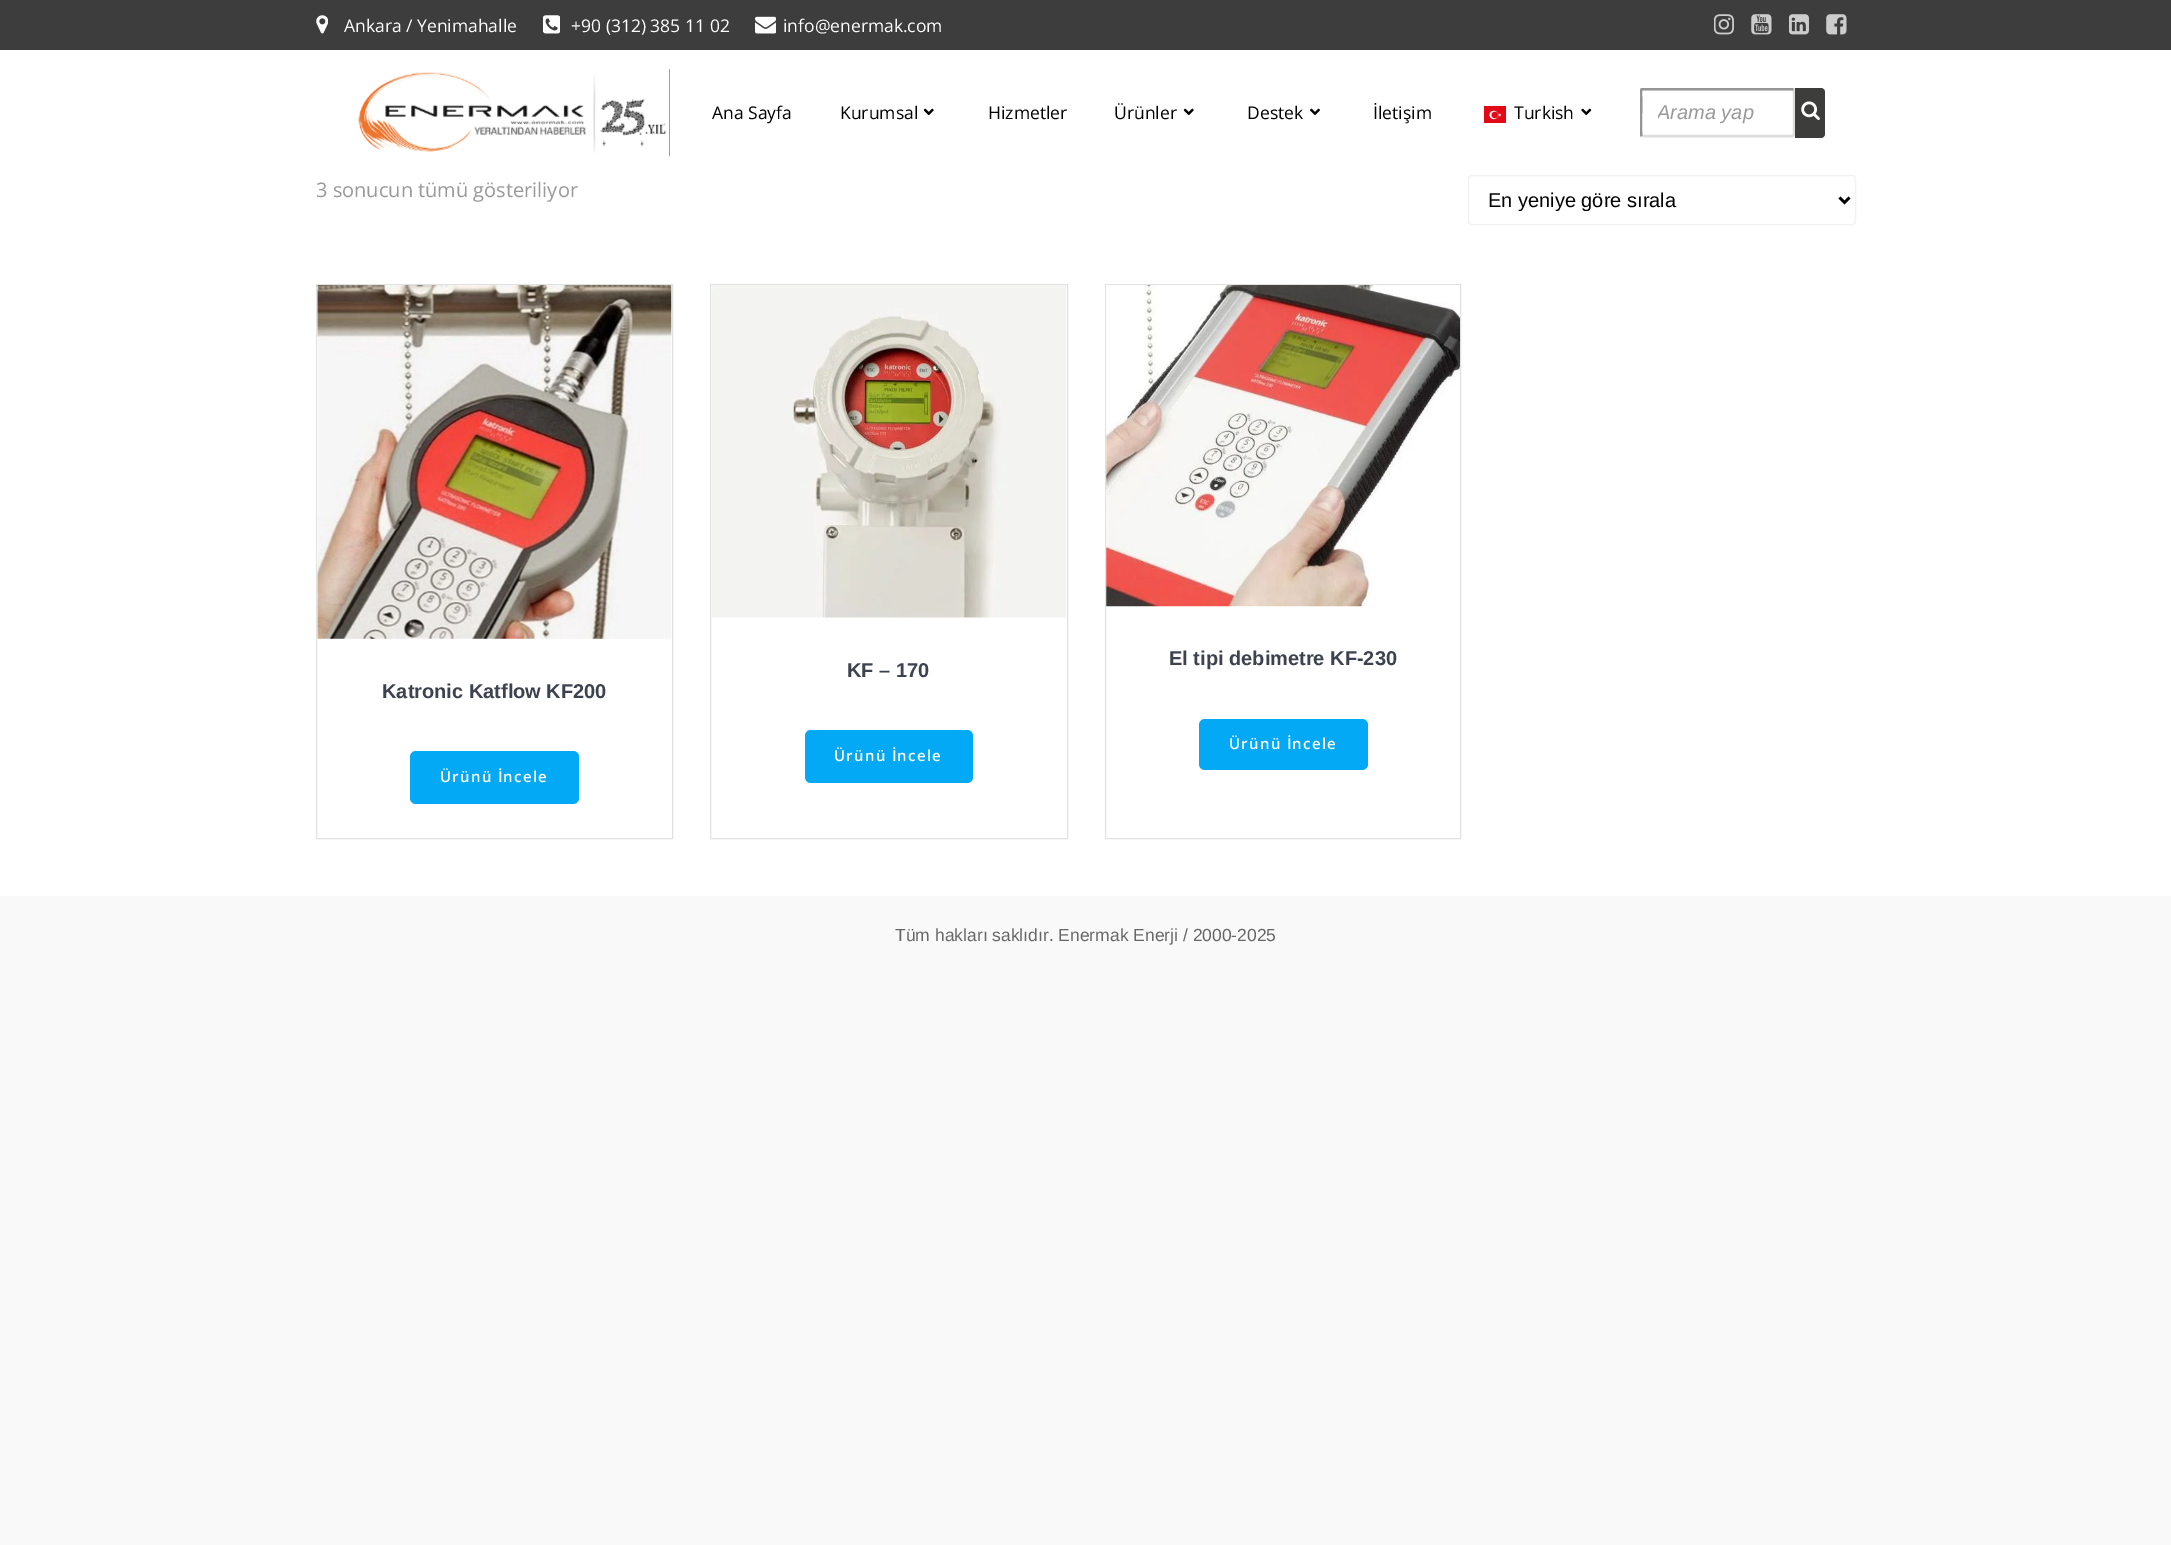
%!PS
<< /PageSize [2171 1545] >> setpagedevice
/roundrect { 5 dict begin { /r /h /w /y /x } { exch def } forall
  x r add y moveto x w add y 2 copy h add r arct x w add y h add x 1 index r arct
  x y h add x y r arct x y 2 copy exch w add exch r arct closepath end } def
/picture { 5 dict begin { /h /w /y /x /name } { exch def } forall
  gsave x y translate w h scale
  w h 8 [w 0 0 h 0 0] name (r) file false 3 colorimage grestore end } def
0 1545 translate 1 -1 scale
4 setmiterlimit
0.976 setgray
0 0 2171 1545 rectfill
1 setgray
0 50 2171 846 rectfill
0.239 setgray
0 0 2171 50 rectfill
(img1.rgb) 316 15 12 19 picture
/OpenSans-Regular [17.5 0 0 -17.5 0 0] selectfont
1 setgray
344 32 moveto (Ankara / Yenimahalle) show
(img2.rgb) 543 15 17 19 picture
571 32 moveto (+90 \(312\) 385 11 02) show
(img3.rgb) 755 16 21 18 picture
783 32 moveto (info@enermak.com) show
(img4.rgb) 1714 14 20 21 picture
(img5.rgb) 1751 14 21 21 picture
(img6.rgb) 1789 14 20 21 picture
(img7.rgb) 1826 14 21 21 picture
0.624 setgray
669 69 1 87 rectfill
(img8.rgb) 358 72 309 81 picture
0 setgray
712 119 moveto (Ana Sayfa) show
840 119 moveto (Kurumsal) show
(img9.rgb) 923 108 11 8 picture
988 119 moveto (Hizmetler) show
1114 119 moveto (Ürünler) show
(img9.rgb) 1183 108 11 8 picture
1247 119 moveto (Destek) show
(img10.rgb) 1310 108 10 7 picture
1373 119 moveto (İletişim) show
(img11.rgb) 1484 106 22 17 picture
1514 119 moveto (Turkish) show
(img12.rgb) 1581 108 11 8 picture
0.871 setgray
2.5 setlinewidth
newpath 1793.5 89 moveto 1794.5 90.5 1794 109.5 1794 112.5 curveto 1794 127.5 lineto 1794 130 1795 136 1792.5 136 curveto 1641.5 136 lineto stroke
gsave
1640 88 185 50 rectclip
0.58 setgray
newpath 1641.5 136 moveto 1640.5 134.5 1641 115.5 1641 112.5 curveto 1641 97.5 lineto 1641 95 1640 89 1642.5 89 curveto 1793.5 89 lineto stroke
grestore
gsave
1658 101 120 23 rectclip
/LiberationSans-Italic [20 0 0 -20 0 0] selectfont
0.6 setgray
1657 119 moveto (Arama yap) show
grestore
0.239 0.239 0.231 setrgbcolor
newpath 1795 88 moveto 1821 88 lineto 1823 88 1825 90 1825 92 curveto 1825 134 lineto 1825 136 1823 138 1821 138 curveto 1795 138 lineto closepath fill
(img13.rgb) 1801 101 19 20 picture
/OpenSans-Regular [20 0 0 -20 0 0] selectfont
0.6 setgray
316 197 moveto (3 sonucun tümü gösteriliyor) show
0.945 setgray
1 setlinewidth
1468.5 175.5 387 49 3.5 roundrect stroke
0 setgray
2.5 setlinewidth
newpath 1839.5 197.5 moveto 1844.5 202.5 lineto 1849.5 197.5 lineto stroke
gsave
1489 188 331 23 rectclip
/LiberationSans-Regular [20 0 0 -20 0 0] selectfont
1488 207 moveto (En yeniye göre sırala) show
grestore
0.878 0.882 0.882 setrgbcolor
1 setlinewidth
316.5 284.5 356 554 rectstroke
(img14.rgb) 317 285 355 354 picture
/LiberationSans-Bold [20 0 0 -20 0 0] selectfont
0.235 0.259 0.31 setrgbcolor
382 698 moveto (Katronic Katflow KF200) show
0.012 0.663 0.957 setrgbcolor
410 751 169 53 6 roundrect fill
/OpenSans-SemiBold [15 0 0 -15 0 0] selectfont
1 setgray
440 782 moveto 1.25 0 (Ürünü İncele) ashow
0.878 0.882 0.882 setrgbcolor
710.5 284.5 357 554 rectstroke
(img15.rgb) 711 285 355 333 picture
/LiberationSans-Bold [20 0 0 -20 0 0] selectfont
0.235 0.259 0.31 setrgbcolor
847 677 moveto (KF – 170) show
0.012 0.663 0.957 setrgbcolor
805 730 168 53 6 roundrect fill
/OpenSans-SemiBold [15 0 0 -15 0 0] selectfont
1 setgray
834 761 moveto 1.25 0 (Ürünü İncele) ashow
0.878 0.882 0.882 setrgbcolor
1105.5 284.5 355 554 rectstroke
(img16.rgb) 1106 285 354 322 picture
/LiberationSans-Bold [20 0 0 -20 0 0] selectfont
0.235 0.259 0.31 setrgbcolor
1169 665 moveto (El tipi debimetre KF-230) show
0.012 0.663 0.957 setrgbcolor
1199 719 169 51 6 roundrect fill
/OpenSans-SemiBold [15 0 0 -15 0 0] selectfont
1 setgray
1229 749 moveto 1.25 0 (Ürünü İncele) ashow
/LiberationSans-Regular [17.5 0 0 -17.5 0 0] selectfont
0.4 setgray
895 941 moveto (Tüm hakları saklıdır. Enermak Enerji / 2000-2025) show
showpage
